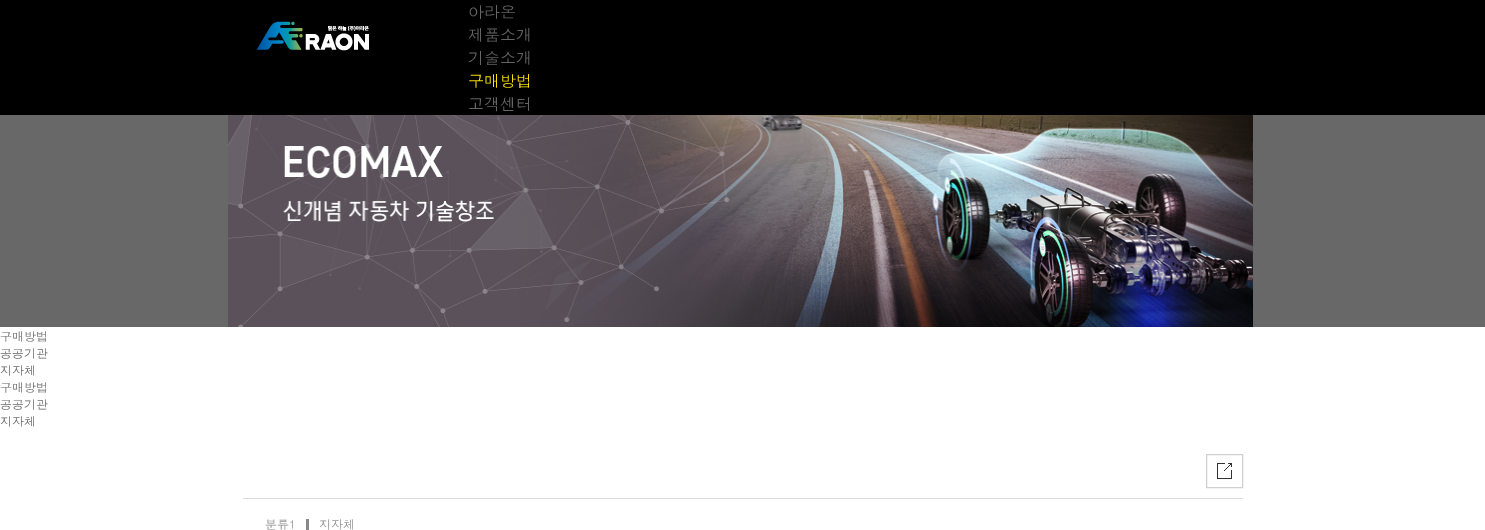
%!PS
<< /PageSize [1485 530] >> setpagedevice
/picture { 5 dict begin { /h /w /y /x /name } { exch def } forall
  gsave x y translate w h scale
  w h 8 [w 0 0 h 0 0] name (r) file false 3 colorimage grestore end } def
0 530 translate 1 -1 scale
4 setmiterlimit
1 setgray
0 0 1485 530 rectfill
0 setgray
0 0 1485 115 rectfill
(img1.rgb) 256 21 113 30 picture
/Dotum-Regular [16 0 0 -16 0 0] selectfont
0.4 setgray
468 18 moveto (아라온) show
468 41 moveto (제품소개) show
468 64 moveto (기술소개) show
1 0.894 0 setrgbcolor
468 87 moveto (구매방법) show
0.4 setgray
468 110 moveto (고객센터) show
0.412 0.408 0.408 setrgbcolor
0 115 1485 212 rectfill
(img2.rgb) 228 115 1025 212 picture
/Dotum-Regular [12 0 0 -12 0 0] selectfont
0.4 setgray
0 341 moveto (구매방법) show
0 358 moveto (공공기관) show
0 375 moveto (지자체) show
0 392 moveto (구매방법) show
0 409 moveto (공공기관) show
0 426 moveto (지자체) show
0.816 setgray
1206.5 454.5 36 33 rectstroke
(img3.rgb) 1217 463 15 16 picture
0.867 setgray
243 498 1000 1 rectfill
0.533 setgray
306 519 3 11 rectfill
0.557 setgray
265 529 moveto (분류1) show
319 529 moveto (지자체) show
showpage
